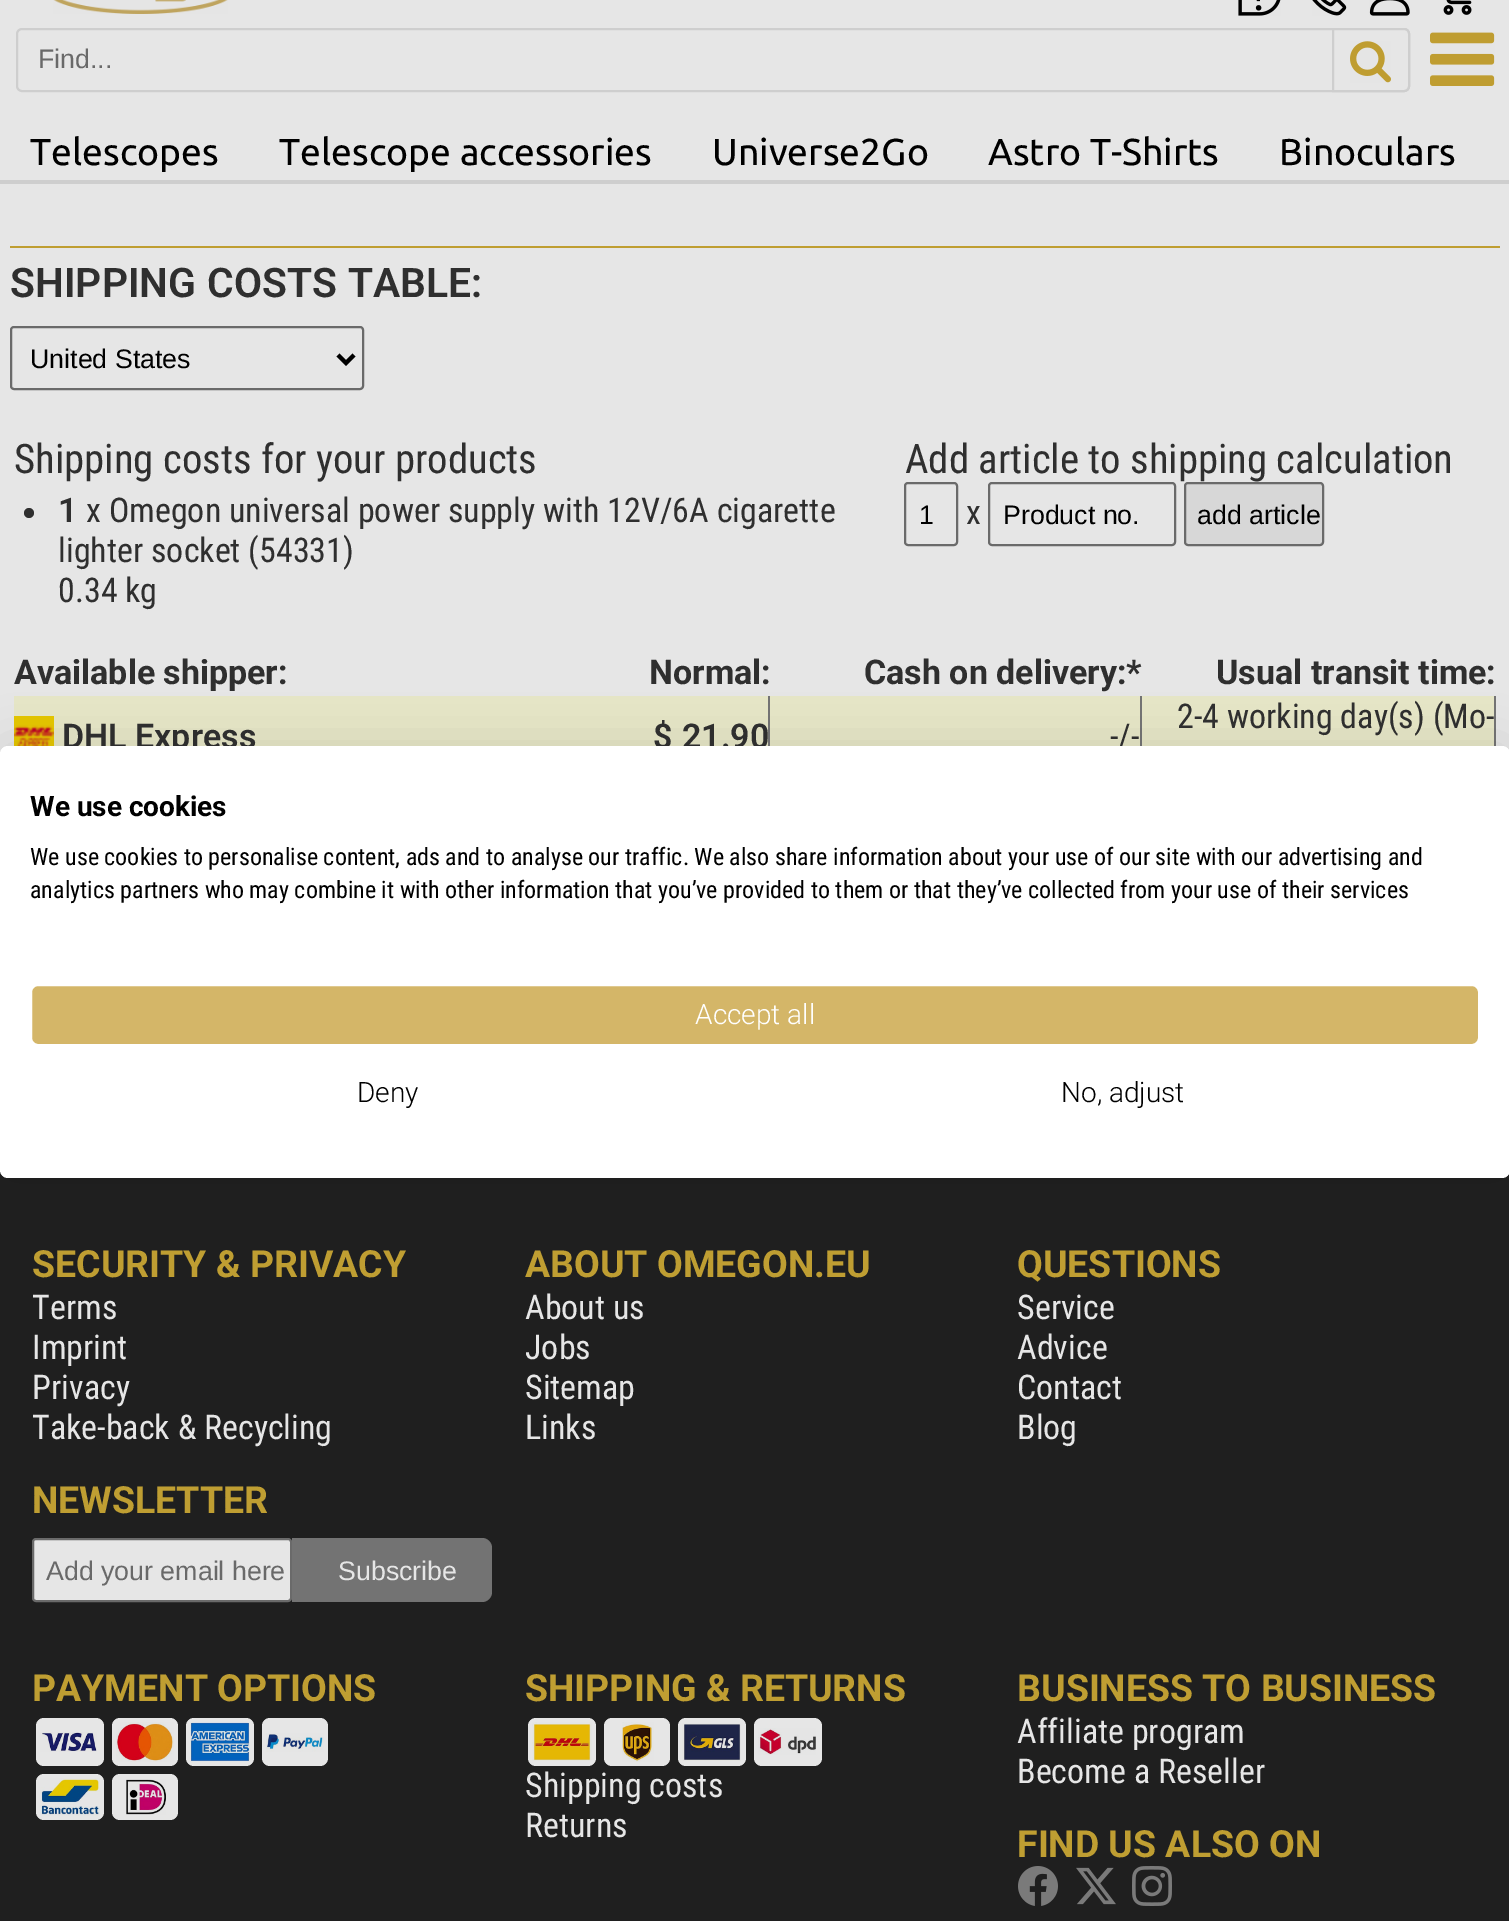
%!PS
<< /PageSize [1509 1921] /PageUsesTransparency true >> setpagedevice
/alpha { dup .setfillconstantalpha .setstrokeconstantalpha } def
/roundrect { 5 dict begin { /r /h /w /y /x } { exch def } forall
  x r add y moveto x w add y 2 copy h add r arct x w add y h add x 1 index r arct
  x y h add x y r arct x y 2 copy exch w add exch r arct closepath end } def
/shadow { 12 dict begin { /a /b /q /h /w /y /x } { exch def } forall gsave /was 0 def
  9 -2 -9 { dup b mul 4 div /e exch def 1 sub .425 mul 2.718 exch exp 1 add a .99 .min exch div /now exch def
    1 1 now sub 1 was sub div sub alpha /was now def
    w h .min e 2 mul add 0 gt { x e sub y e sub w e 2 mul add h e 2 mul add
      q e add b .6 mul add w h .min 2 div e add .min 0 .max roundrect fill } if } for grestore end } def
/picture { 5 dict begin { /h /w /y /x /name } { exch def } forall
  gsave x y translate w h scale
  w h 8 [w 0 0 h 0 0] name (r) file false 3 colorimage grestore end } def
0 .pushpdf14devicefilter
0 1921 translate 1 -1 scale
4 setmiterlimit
0.902 setgray
0 0 1509 1921 rectfill
(img1.rgb) 53 0 175 14 picture
(img2.rgb) 1238 0 43 16 picture
(img3.rgb) 1312 0 35 16 picture
(img4.rgb) 1369 0 41 16 picture
(img5.rgb) 1443 0 29 15 picture
0.808 setgray
2 setlinewidth
17 29 1392 62 5 roundrect stroke
/LiberationSans-Regular [26.75 0 0 -26.75 0 0] selectfont
0.412 setgray
38 68 moveto (Find...) show
0.902 setgray
newpath 1333 29 moveto 1404 29 lineto 1407 29 1409 31 1409 34 curveto 1409 86 lineto 1409 89 1407 91 1404 91 curveto 1333 91 lineto closepath gsave fill grestore
0.808 setgray
stroke
(img6.rgb) 1350 41 41 42 picture
(img7.rgb) 1430 32 65 54 picture
/Ubuntu-Regular [37.4 0 0 -37.4 0 0] selectfont
0 setgray
30 165 moveto (Telescopes) show
279 165 moveto (Telescope accessories) show
712 165 moveto (Universe2Go) show
988 165 moveto (Astro T-Shirts) show
1279 165 moveto (Binoculars) show
0.808 setgray
0 180 1509 4 rectfill
0.749 0.62 0.196 setrgbcolor
10 246 1490 2 rectfill
/Roboto-SemiBold [40.75 0 0 -40.75 0 0] selectfont
0.184 setgray
10 297 moveto 1 0 32 (SHIPPING COSTS TABLE:) widthshow
0.416 setgray
11 327 352 62 3 roundrect stroke
0 setgray
4 setlinewidth
newpath 338 355 moveto 346 363 lineto 354 355 lineto stroke
/LiberationSans-Regular [26.75 0 0 -26.75 0 0] selectfont
30 368 moveto (United States) show
/RobotoCondensed-Regular [40.75 0 0 -40.75 0 0] selectfont
0.184 setgray
14 473 moveto (Shipping costs for your products) show
newpath 29 513 5 0 360 arc closepath fill
/Roboto-SemiBold [34 0 0 -34 0 0] selectfont
58 522 moveto (1) show
/RobotoCondensed-Regular [34 0 0 -34 0 0] selectfont
86 522 moveto (x Omegon universal power supply with 12V/6A cigarette) show
58 562 moveto (lighter socket \(54331\)) show
58 602 moveto (0.34 kg) show
/RobotoCondensed-Regular [40.75 0 0 -40.75 0 0] selectfont
905 473 moveto (Add article to shipping calculation) show
0.416 setgray
2 setlinewidth
905 483 52 62 3 roundrect stroke
/LiberationSans-Regular [26.75 0 0 -26.75 0 0] selectfont
0 setgray
919 524 moveto (1) show
/RobotoCondensed-Regular [34 0 0 -34 0 0] selectfont
0.184 setgray
966 524 moveto (x) show
0.416 setgray
989 483 186 62 3 roundrect stroke
/LiberationSans-Regular [26.75 0 0 -26.75 0 0] selectfont
0 setgray
1003 524 moveto (Product no.) show
0.843 setgray
1185 483 138 62 3 roundrect gsave fill grestore
0.416 setgray
stroke
0 setgray
1197 524 moveto (add article) show
/Roboto-Bold [34 0 0 -34 0 0] selectfont
0.184 setgray
14 684 moveto (Available shipper:) show
649 684 moveto (Normal:) show
864 684 moveto (Cash on delivery:*) show
1216 684 moveto (Usual transit time:) show
0.902 0.902 0.78 setrgbcolor
14 696 1480 50 rectfill
(img8.rgb) 14 716 40 30 picture
/Roboto-SemiBold [34 0 0 -34 0 0] selectfont
0.184 setgray
62 748 moveto (DHL Express) show
0.451 setgray
768 696 2 50 rectfill
0.184 setgray
653 748 moveto 1 0 32 ($ 21.90) widthshow
0.451 setgray
1140 696 2 50 rectfill
/RobotoCondensed-Regular [34 0 0 -34 0 0] selectfont
0.184 setgray
1110 748 moveto (-/-) show
0.451 setgray
1494 696 2 50 rectfill
0.184 setgray
1177 728 moveto (2-4 working day\(s\) \(Mo-) show
0.122 setgray
0 1170 1509 751 rectfill
/Roboto-Bold [37.4 0 0 -37.4 0 0] selectfont
0.749 0.62 0.196 setrgbcolor
32 1277 moveto (SECURITY & PRIVACY) show
/RobotoCondensed-Regular [34 0 0 -34 0 0] selectfont
0.902 setgray
32 1319 moveto (Terms) show
32 1359 moveto (Imprint) show
32 1399 moveto (Privacy) show
32 1439 moveto (Take-back & Recycling) show
/Roboto-Bold [37.4 0 0 -37.4 0 0] selectfont
0.749 0.62 0.196 setrgbcolor
525 1277 moveto (ABOUT OMEGON.EU) show
/RobotoCondensed-Regular [34 0 0 -34 0 0] selectfont
0.902 setgray
525 1319 moveto (About us) show
525 1359 moveto (Jobs) show
525 1399 moveto (Sitemap) show
525 1439 moveto (Links) show
/Roboto-Bold [37.4 0 0 -37.4 0 0] selectfont
0.749 0.62 0.196 setrgbcolor
1017 1277 moveto (QUESTIONS) show
/RobotoCondensed-Regular [34 0 0 -34 0 0] selectfont
0.902 setgray
1017 1319 moveto (Service) show
1017 1359 moveto (Advice) show
1017 1399 moveto (Contact) show
1017 1439 moveto (Blog) show
/Roboto-Bold [37.4 0 0 -37.4 0 0] selectfont
0.749 0.62 0.196 setrgbcolor
32 1513 moveto (NEWSLETTER) show
0.902 setgray
33 1539 258 62 3 roundrect gsave fill grestore
0.416 setgray
stroke
/LiberationSans-Regular [26.75 0 0 -26.75 0 0] selectfont
0.412 setgray
46 1580 moveto (Add your email here) show
0.451 setgray
newpath 292 1538 moveto 482 1538 lineto 487.5 1538 492 1542.5 492 1548 curveto 492 1592 lineto 492 1597.5 487.5 1602 482 1602 curveto 292 1602 lineto closepath fill
0.902 setgray
338 1580 moveto (Subscribe) show
/Roboto-Bold [37.4 0 0 -37.4 0 0] selectfont
0.749 0.62 0.196 setrgbcolor
32 1701 moveto (PAYMENT OPTIONS) show
0.902 setgray
36 1718 68 48 8 roundrect fill
(img9.rgb) 40 1732 57 20 picture
112 1718 66 48 8 roundrect fill
(img10.rgb) 116 1722 58 40 picture
186 1718 68 48 8 roundrect fill
(img11.rgb) 190 1722 60 40 picture
262 1718 66 48 8 roundrect fill
(img12.rgb) 266 1733 58 19 picture
36 1774 68 46 8 roundrect fill
(img13.rgb) 40 1778 60 38 picture
112 1774 66 46 8 roundrect fill
(img14.rgb) 126 1779 40 36 picture
0.749 0.62 0.196 setrgbcolor
525 1701 moveto (SHIPPING & RETURNS) show
0.902 setgray
528 1718 68 48 8 roundrect fill
(img15.rgb) 532 1722 60 39 picture
604 1718 66 48 8 roundrect fill
(img16.rgb) 622 1722 32 40 picture
678 1718 68 48 8 roundrect fill
(img17.rgb) 682 1723 59 38 picture
754 1718 68 48 8 roundrect fill
(img18.rgb) 758 1728 58 27 picture
/RobotoCondensed-Regular [34 0 0 -34 0 0] selectfont
525 1797 moveto (Shipping costs) show
525 1837 moveto (Returns) show
/Roboto-Bold [37.4 0 0 -37.4 0 0] selectfont
0.749 0.62 0.196 setrgbcolor
1017 1701 moveto (BUSINESS TO BUSINESS) show
/RobotoCondensed-Regular [34 0 0 -34 0 0] selectfont
0.902 setgray
1017 1743 moveto (Affiliate program) show
1017 1783 moveto (Become a Reseller) show
/Roboto-Bold [37.4 0 0 -37.4 0 0] selectfont
0.749 0.62 0.196 setrgbcolor
1017 1857 moveto (FIND US ALSO ON) show
(img19.rgb) 1018 1866 40 40 picture
(img20.rgb) 1076 1867 40 38 picture
(img21.rgb) 1132 1866 40 40 picture
0 setgray
0 746 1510 432 8 24 0.1 shadow
1 setgray
0 746 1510 432 8 roundrect fill
/Roboto-Bold [28 0 0 -28 0 0] selectfont
0 setgray
30 816 moveto (We use cookies) show
/RobotoCondensed-Regular [24 0 0 -24 0 0] selectfont
30 865 moveto (We use cookies to personalise content, ads and to analyse our traffic. We also share information about your use of our site with our advertising and) show
30 898 moveto (analytics partners who may combine it with other information that you’ve provided to them or that they’ve collected from your use of their services) show
0.831 0.714 0.408 setrgbcolor
31 985 1448 60 7 roundrect gsave fill grestore
1 setgray
stroke
/Roboto-Light [28 0 0 -28 0 0] selectfont
695 1024 moveto (Accept all) show
0 setgray
357 1102 moveto (Deny) show
1061 1102 moveto (No, adjust) show
.poppdf14devicefilter showpage
